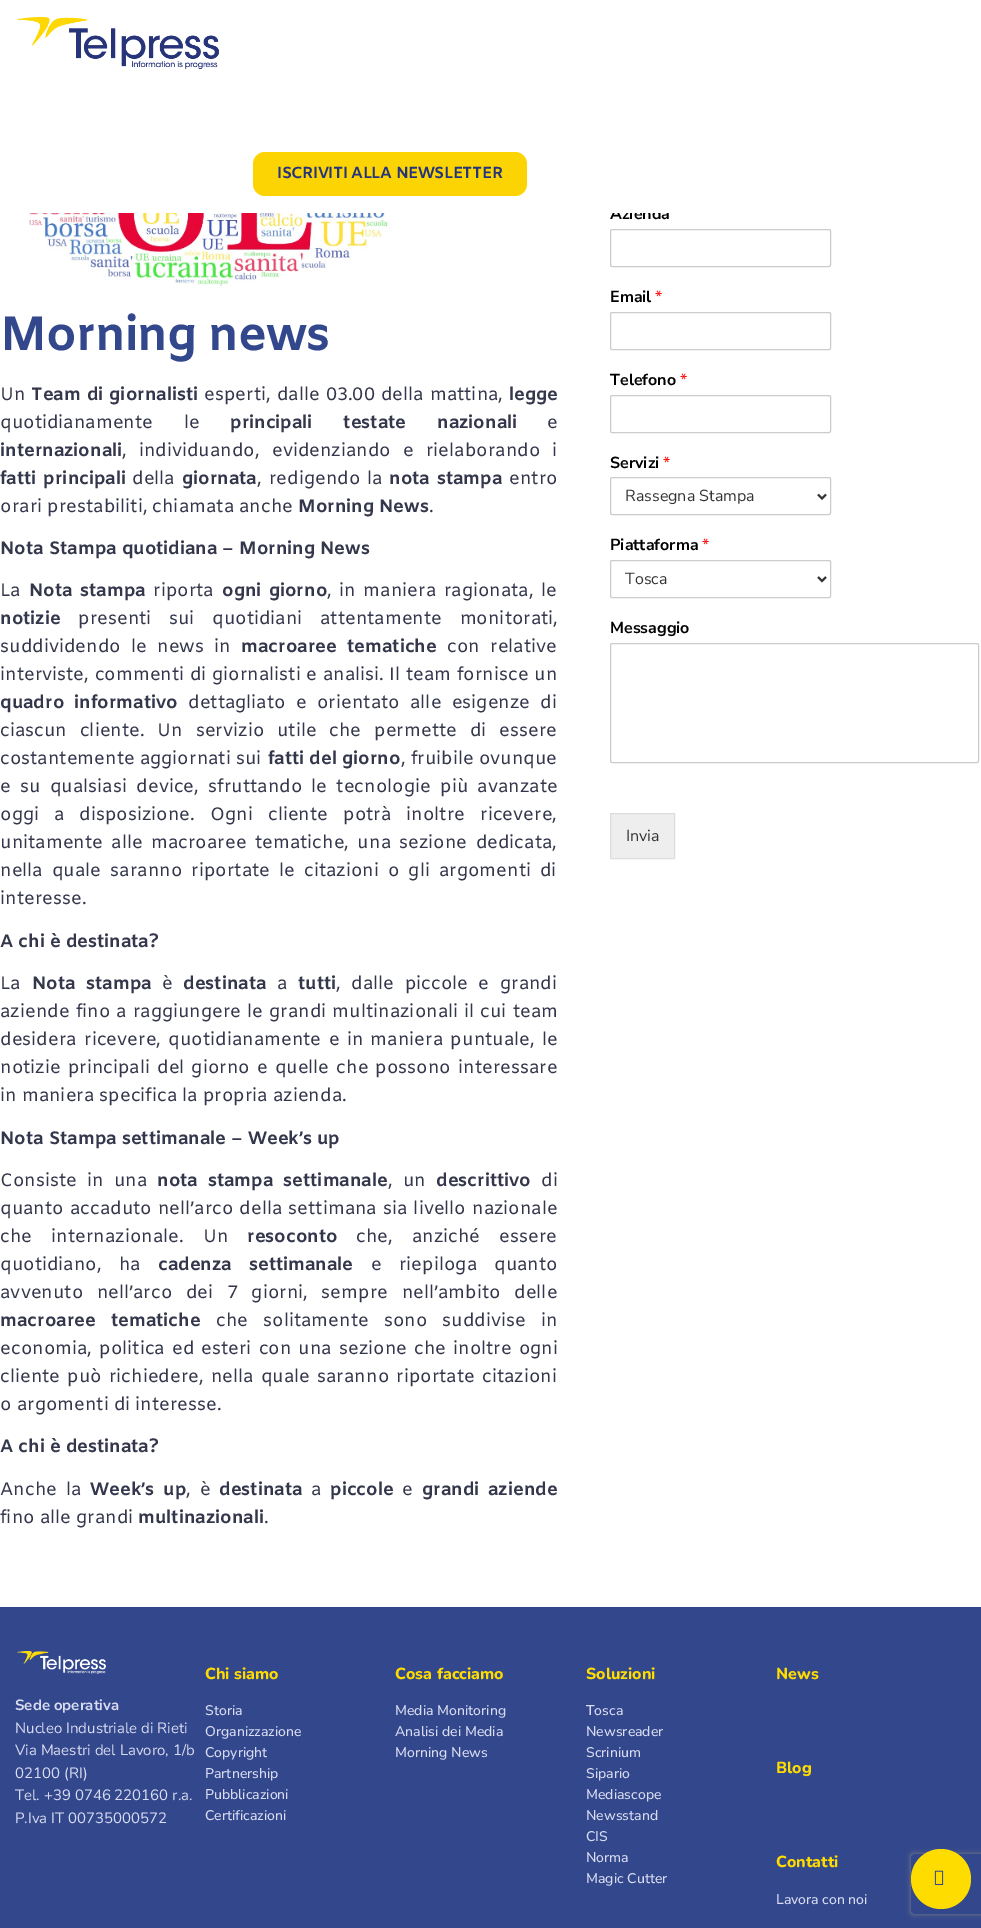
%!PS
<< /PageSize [981 1928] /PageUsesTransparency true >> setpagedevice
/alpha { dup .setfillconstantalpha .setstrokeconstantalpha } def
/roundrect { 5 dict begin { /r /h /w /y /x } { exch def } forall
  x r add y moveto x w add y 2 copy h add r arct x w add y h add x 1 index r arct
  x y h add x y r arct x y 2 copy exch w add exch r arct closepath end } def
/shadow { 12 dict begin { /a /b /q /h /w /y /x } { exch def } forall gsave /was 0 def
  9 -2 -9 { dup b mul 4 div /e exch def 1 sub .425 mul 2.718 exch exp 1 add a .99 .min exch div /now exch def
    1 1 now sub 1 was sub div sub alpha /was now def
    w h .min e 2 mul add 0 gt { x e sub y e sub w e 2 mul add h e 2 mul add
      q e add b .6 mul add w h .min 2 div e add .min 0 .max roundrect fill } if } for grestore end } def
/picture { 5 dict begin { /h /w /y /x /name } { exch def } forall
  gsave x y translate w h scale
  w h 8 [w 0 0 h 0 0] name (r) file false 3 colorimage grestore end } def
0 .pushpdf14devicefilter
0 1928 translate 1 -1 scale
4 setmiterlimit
1 setgray
0 0 981 1928 rectfill
/NunitoSans-Bold [16 0 0 -16 0 0] selectfont
0 setgray
610 219 moveto (Azienda) show
1 setgray
612 207 57 6 rectfill
(img1.rgb) 17 17 202 53 picture
0.988 0.831 0.016 setrgbcolor
253 152 274 44 12 roundrect fill
/Amiko-Bold [16 0 0 -16 0 0] selectfont
0.141 0.204 0.486 setrgbcolor
277 178 moveto -0.5 0 (ISCRIVITI ALLA NEWSLETTER) ashow
(img2.rgb) 18 213 379 74 picture
/Amiko-Bold [48 0 0 -48 0 0] selectfont
0.2 0.278 0.549 setrgbcolor
0 350 moveto -1 0 (Morning news) ashow
/Amiko-Regular [18 0 0 -18 0 0] selectfont
0.204 0.216 0.294 setrgbcolor
0 400 moveto (Un) show
/Amiko-Bold [18 0 0 -18 0 0] selectfont
31 400 moveto 1 0 32 (Team di giornalisti) widthshow
/Amiko-Regular [18 0 0 -18 0 0] selectfont
204 400 moveto 1 0 32 (esperti, dalle 03.00 della mattina,) widthshow
/Amiko-Bold [18 0 0 -18 0 0] selectfont
509 400 moveto (legge) show
/Amiko-Regular [18 0 0 -18 0 0] selectfont
0 428 moveto 26 0 32 (quotidianamente le) widthshow
/Amiko-Bold [18 0 0 -18 0 0] selectfont
230 428 moveto 26 0 32 (principali testate nazionali) widthshow
/Amiko-Regular [18 0 0 -18 0 0] selectfont
547 428 moveto (e) show
/Amiko-Bold [18 0 0 -18 0 0] selectfont
0 456 moveto (internazionali) show
/Amiko-Regular [18 0 0 -18 0 0] selectfont
122 456 moveto 7 0 32 (, individuando, evidenziando e rielaborando i) widthshow
/Amiko-Bold [18 0 0 -18 0 0] selectfont
0 484 moveto 2 0 32 (fatti principali) widthshow
/Amiko-Regular [18 0 0 -18 0 0] selectfont
132 484 moveto (della) show
/Amiko-Bold [18 0 0 -18 0 0] selectfont
182 484 moveto (giornata) show
/Amiko-Regular [18 0 0 -18 0 0] selectfont
257 484 moveto 2 0 32 (, redigendo la) widthshow
/Amiko-Bold [18 0 0 -18 0 0] selectfont
389 484 moveto 2 0 32 (nota stampa) widthshow
/Amiko-Regular [18 0 0 -18 0 0] selectfont
509 484 moveto (entro) show
0 512 moveto (orari prestabiliti, chiamata anche) show
/Amiko-Bold [18 0 0 -18 0 0] selectfont
298 512 moveto (Morning News) show
/Amiko-Regular [18 0 0 -18 0 0] selectfont
429 512 moveto (.) show
/Amiko-Bold [18 0 0 -18 0 0] selectfont
0 554 moveto (Nota Stampa quotidiana – Morning News) show
/Amiko-Regular [18 0 0 -18 0 0] selectfont
0 596 moveto (La) show
/Amiko-Bold [18 0 0 -18 0 0] selectfont
29 596 moveto 2.5 0 32 (Nota stampa) widthshow
/Amiko-Regular [18 0 0 -18 0 0] selectfont
153 596 moveto (riporta) show
/Amiko-Bold [18 0 0 -18 0 0] selectfont
222 596 moveto 2.5 0 32 (ogni giorno) widthshow
/Amiko-Regular [18 0 0 -18 0 0] selectfont
327 596 moveto 2.5 0 32 (, in maniera ragionata, le) widthshow
/Amiko-Bold [18 0 0 -18 0 0] selectfont
0 624 moveto (notizie) show
/Amiko-Regular [18 0 0 -18 0 0] selectfont
78 624 moveto 12.5 0 32 (presenti sui quotidiani attentamente monitorati,) widthshow
0 652 moveto 5.25 0 32 (suddividendo le news in) widthshow
/Amiko-Bold [18 0 0 -18 0 0] selectfont
241 652 moveto 5.25 0 32 (macroaree tematiche) widthshow
/Amiko-Regular [18 0 0 -18 0 0] selectfont
447 652 moveto 5.25 0 32 (con relative) widthshow
0 680 moveto 0.6 0 32 (interviste, commenti di giornalisti e analisi. Il team fornisce un) widthshow
/Amiko-Bold [18 0 0 -18 0 0] selectfont
0 708 moveto 5.25 0 32 (quadro informativo) widthshow
/Amiko-Regular [18 0 0 -18 0 0] selectfont
188 708 moveto 5.25 0 32 (dettagliato e orientato alle esigenze di) widthshow
0 736 moveto 7.75 0 32 (ciascun cliente. Un servizio utile che permette di essere) widthshow
0 764 moveto (costantemente aggiornati sui) show
/Amiko-Bold [18 0 0 -18 0 0] selectfont
268 764 moveto (fatti del giorno) show
/Amiko-Regular [18 0 0 -18 0 0] selectfont
401 764 moveto (, fruibile ovunque) show
0 792 moveto 4.25 0 32 (e su qualsiasi device, sfruttando le tecnologie più avanzate) widthshow
0 820 moveto 10 0 32 (oggi a disposizione. Ogni cliente potrà inoltre ricevere,) widthshow
0 848 moveto 3.25 0 32 (unitamente alle macroaree tematiche, una sezione dedicata,) widthshow
0 876 moveto 4 0 32 (nella quale saranno riportate le citazioni o gli argomenti di) widthshow
0 904 moveto (interesse.) show
/Amiko-Bold [18 0 0 -18 0 0] selectfont
0 947 moveto (A chi è destinata?) show
/Amiko-Regular [18 0 0 -18 0 0] selectfont
0 989 moveto (La) show
/Amiko-Bold [18 0 0 -18 0 0] selectfont
32 989 moveto 5.5 0 32 (Nota stampa) widthshow
/Amiko-Regular [18 0 0 -18 0 0] selectfont
162 989 moveto (è) show
/Amiko-Bold [18 0 0 -18 0 0] selectfont
183 989 moveto (destinata) show
/Amiko-Regular [18 0 0 -18 0 0] selectfont
277 989 moveto (a) show
/Amiko-Bold [18 0 0 -18 0 0] selectfont
298 989 moveto (tutti) show
/Amiko-Regular [18 0 0 -18 0 0] selectfont
336 989 moveto 5.5 0 32 (, dalle piccole e grandi) widthshow
0 1017 moveto 1 0 32 (aziende fino a raggiungere le grandi multinazionali il cui team) widthshow
0 1045 moveto 2.25 0 32 (desidera ricevere, quotidianamente e in maniera puntuale, le) widthshow
0 1073 moveto 2 0 32 (notizie principali del giorno e quelle che possono interessare) widthshow
0 1101 moveto (in maniera specifica la propria azienda.) show
/Amiko-Bold [18 0 0 -18 0 0] selectfont
0 1144 moveto (Nota Stampa settimanale – Week’s up) show
/Amiko-Regular [18 0 0 -18 0 0] selectfont
0 1186 moveto 5 0 32 (Consiste in una) widthshow
/Amiko-Bold [18 0 0 -18 0 0] selectfont
157 1186 moveto 5 0 32 (nota stampa settimanale) widthshow
/Amiko-Regular [18 0 0 -18 0 0] selectfont
388 1186 moveto 5 0 32 (, un) widthshow
/Amiko-Bold [18 0 0 -18 0 0] selectfont
436 1186 moveto (descrittivo) show
/Amiko-Regular [18 0 0 -18 0 0] selectfont
541 1186 moveto (di) show
0 1214 moveto 1 0 32 (quanto accaduto nell’arco della settimana sia livello nazionale) widthshow
0 1242 moveto 14 0 32 (che internazionale. Un) widthshow
/Amiko-Bold [18 0 0 -18 0 0] selectfont
247 1242 moveto (resoconto) show
/Amiko-Regular [18 0 0 -18 0 0] selectfont
356 1242 moveto 14 0 32 (che, anziché essere) widthshow
0 1270 moveto 12 0 32 (quotidiano, ha) widthshow
/Amiko-Bold [18 0 0 -18 0 0] selectfont
158 1270 moveto 12 0 32 (cadenza settimanale) widthshow
/Amiko-Regular [18 0 0 -18 0 0] selectfont
371 1270 moveto 12 0 32 (e riepiloga quanto) widthshow
0 1298 moveto 8.5 0 32 (avvenuto nell’arco dei 7 giorni, sempre nell’ambito delle) widthshow
/Amiko-Bold [18 0 0 -18 0 0] selectfont
0 1326 moveto 10 0 32 (macroaree tematiche) widthshow
/Amiko-Regular [18 0 0 -18 0 0] selectfont
216 1326 moveto 10 0 32 (che solitamente sono suddivise in) widthshow
0 1354 moveto 2 0 32 (economia, politica ed esteri con una sezione che inoltre ogni) widthshow
0 1382 moveto 2 0 32 (cliente può richiedere, nella quale saranno riportate citazioni) widthshow
0 1410 moveto (o argomenti di interesse.) show
/Amiko-Bold [18 0 0 -18 0 0] selectfont
0 1452 moveto (A chi è destinata?) show
/Amiko-Regular [18 0 0 -18 0 0] selectfont
0 1495 moveto 4 0 32 (Anche la) widthshow
/Amiko-Bold [18 0 0 -18 0 0] selectfont
90 1495 moveto 4 0 32 (Week’s up) widthshow
/Amiko-Regular [18 0 0 -18 0 0] selectfont
186 1495 moveto 4 0 32 (, è) widthshow
/Amiko-Bold [18 0 0 -18 0 0] selectfont
219 1495 moveto (destinata) show
/Amiko-Regular [18 0 0 -18 0 0] selectfont
311 1495 moveto (a) show
/Amiko-Bold [18 0 0 -18 0 0] selectfont
330 1495 moveto (piccole) show
/Amiko-Regular [18 0 0 -18 0 0] selectfont
402 1495 moveto (e) show
/Amiko-Bold [18 0 0 -18 0 0] selectfont
422 1495 moveto (grandi) show
488 1495 moveto (aziende) show
/Amiko-Regular [18 0 0 -18 0 0] selectfont
0 1523 moveto (fino alle grandi) show
/Amiko-Bold [18 0 0 -18 0 0] selectfont
138 1523 moveto (multinazionali) show
/Amiko-Regular [18 0 0 -18 0 0] selectfont
264 1523 moveto (.) show
0.8 setgray
610.5 229.5 220 37 1.5 roundrect stroke
/NunitoSans-Bold [16 0 0 -16 0 0] selectfont
0 setgray
610 302 moveto (Email) show
/NunitoSans-Regular [16 0 0 -16 0 0] selectfont
1 0 0 setrgbcolor
655 302 moveto (*) show
0.8 setgray
610.5 312.5 220 37 1.5 roundrect stroke
/NunitoSans-Bold [16 0 0 -16 0 0] selectfont
0 setgray
610 385 moveto (Telefono) show
/NunitoSans-Regular [16 0 0 -16 0 0] selectfont
1 0 0 setrgbcolor
680 385 moveto (*) show
0.8 setgray
610.5 395.5 220 37 1.5 roundrect stroke
/NunitoSans-Bold [16 0 0 -16 0 0] selectfont
0 setgray
610 468 moveto (Servizi) show
/NunitoSans-Regular [16 0 0 -16 0 0] selectfont
1 0 0 setrgbcolor
663 468 moveto (*) show
0.8 setgray
610.5 477.5 220 37 1.5 roundrect stroke
0.2 setgray
2 setlinewidth
newpath 818 494.5 moveto 822 498.5 lineto 826 494.5 lineto stroke
625 501 moveto (Rassegna Stampa) show
/NunitoSans-Bold [16 0 0 -16 0 0] selectfont
0 setgray
610 550 moveto (Piattaforma) show
/NunitoSans-Regular [16 0 0 -16 0 0] selectfont
1 0 0 setrgbcolor
702 550 moveto (*) show
0.8 setgray
1 setlinewidth
610.5 560.5 220 37 1.5 roundrect stroke
0.2 setgray
2 setlinewidth
newpath 818 577 moveto 822 581 lineto 826 577 lineto stroke
625 584 moveto (Tosca) show
/NunitoSans-Bold [16 0 0 -16 0 0] selectfont
0 setgray
610 633 moveto (Messaggio) show
0.8 setgray
1 setlinewidth
610.5 643.5 368 119 1.5 roundrect stroke
0.933 setgray
newpath 610.5 813.5 moveto 674.5 813.5 lineto 674.5 858.5 lineto 610.5 858.5 lineto closepath gsave fill grestore
0.867 setgray
stroke
/NunitoSans-Regular [16 0 0 -16 0 0] selectfont
0.2 setgray
626 841 moveto (Invia) show
0.2 0.278 0.549 setrgbcolor
0 1607 981 321 rectfill
(img3.rgb) 17 1651 89 23 picture
/Nunito-Bold [15 0 0 -15 0 0] selectfont
0.851 0.863 0.945 setrgbcolor
15 1710 moveto (Sede operativa) show
/Nunito-Regular [15 0 0 -15 0 0] selectfont
15 1733 moveto (Nucleo Industriale di Rieti) show
15 1755 moveto (Via Maestri del Lavoro, 1/b) show
15 1778 moveto (02100 \(RI\)) show
15 1800 moveto (Tel. +39 0746 220160 r.a.) show
15 1823 moveto (P.Iva IT 00735000572) show
/Nunito-ExtraBold [16 0 0 -16 0 0] selectfont
1 0.863 0 setrgbcolor
205 1679 moveto (Chi siamo) show
/NunitoSans-Medium [14 0 0 -14 0 0] selectfont
0.851 0.863 0.945 setrgbcolor
205 1715 moveto (Storia) show
205 1736 moveto (Organizzazione) show
205 1757 moveto (Copyright) show
205 1778 moveto (Partnership) show
205 1799 moveto (Pubblicazioni) show
205 1820 moveto (Certificazioni) show
/Nunito-ExtraBold [16 0 0 -16 0 0] selectfont
1 0.863 0 setrgbcolor
395 1679 moveto (Cosa facciamo) show
/NunitoSans-Medium [14 0 0 -14 0 0] selectfont
0.851 0.863 0.945 setrgbcolor
395 1715 moveto (Media Monitoring) show
395 1736 moveto (Analisi dei Media) show
395 1757 moveto (Morning News) show
/Nunito-ExtraBold [16 0 0 -16 0 0] selectfont
1 0.863 0 setrgbcolor
586 1679 moveto (Soluzioni) show
/NunitoSans-Medium [14 0 0 -14 0 0] selectfont
0.851 0.863 0.945 setrgbcolor
586 1715 moveto (Tosca) show
586 1736 moveto (Newsreader) show
586 1757 moveto (Scrinium) show
586 1778 moveto (Sipario) show
586 1799 moveto (Mediascope) show
586 1820 moveto (Newsstand) show
586 1841 moveto (CIS) show
586 1862 moveto (Norma) show
586 1883 moveto (Magic Cutter) show
/Nunito-ExtraBold [16 0 0 -16 0 0] selectfont
1 0.863 0 setrgbcolor
776 1679 moveto (News) show
776 1773 moveto (Blog) show
776 1867 moveto (Contatti) show
/NunitoSans-Medium [14 0 0 -14 0 0] selectfont
0.851 0.863 0.945 setrgbcolor
776 1904 moveto (Lavora con noi) show
gsave
newpath 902 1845 moveto 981 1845 lineto 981 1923 lineto 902 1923 lineto closepath 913 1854 moveto 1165 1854 lineto 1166 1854 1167 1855 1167 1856 curveto 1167 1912 lineto 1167 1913 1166 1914 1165 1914 curveto 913 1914 lineto 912 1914 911 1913 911 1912 curveto 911 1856 lineto 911 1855 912 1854 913 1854 curveto closepath eoclip newpath
0.502 setgray
911 1854 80 60 2 2.5 1 shadow
grestore
1 0.863 0 setrgbcolor
newpath 941 1879 30 0 360 arc closepath fill
(img4.rgb) 934 1870 10 15 picture
.poppdf14devicefilter showpage
